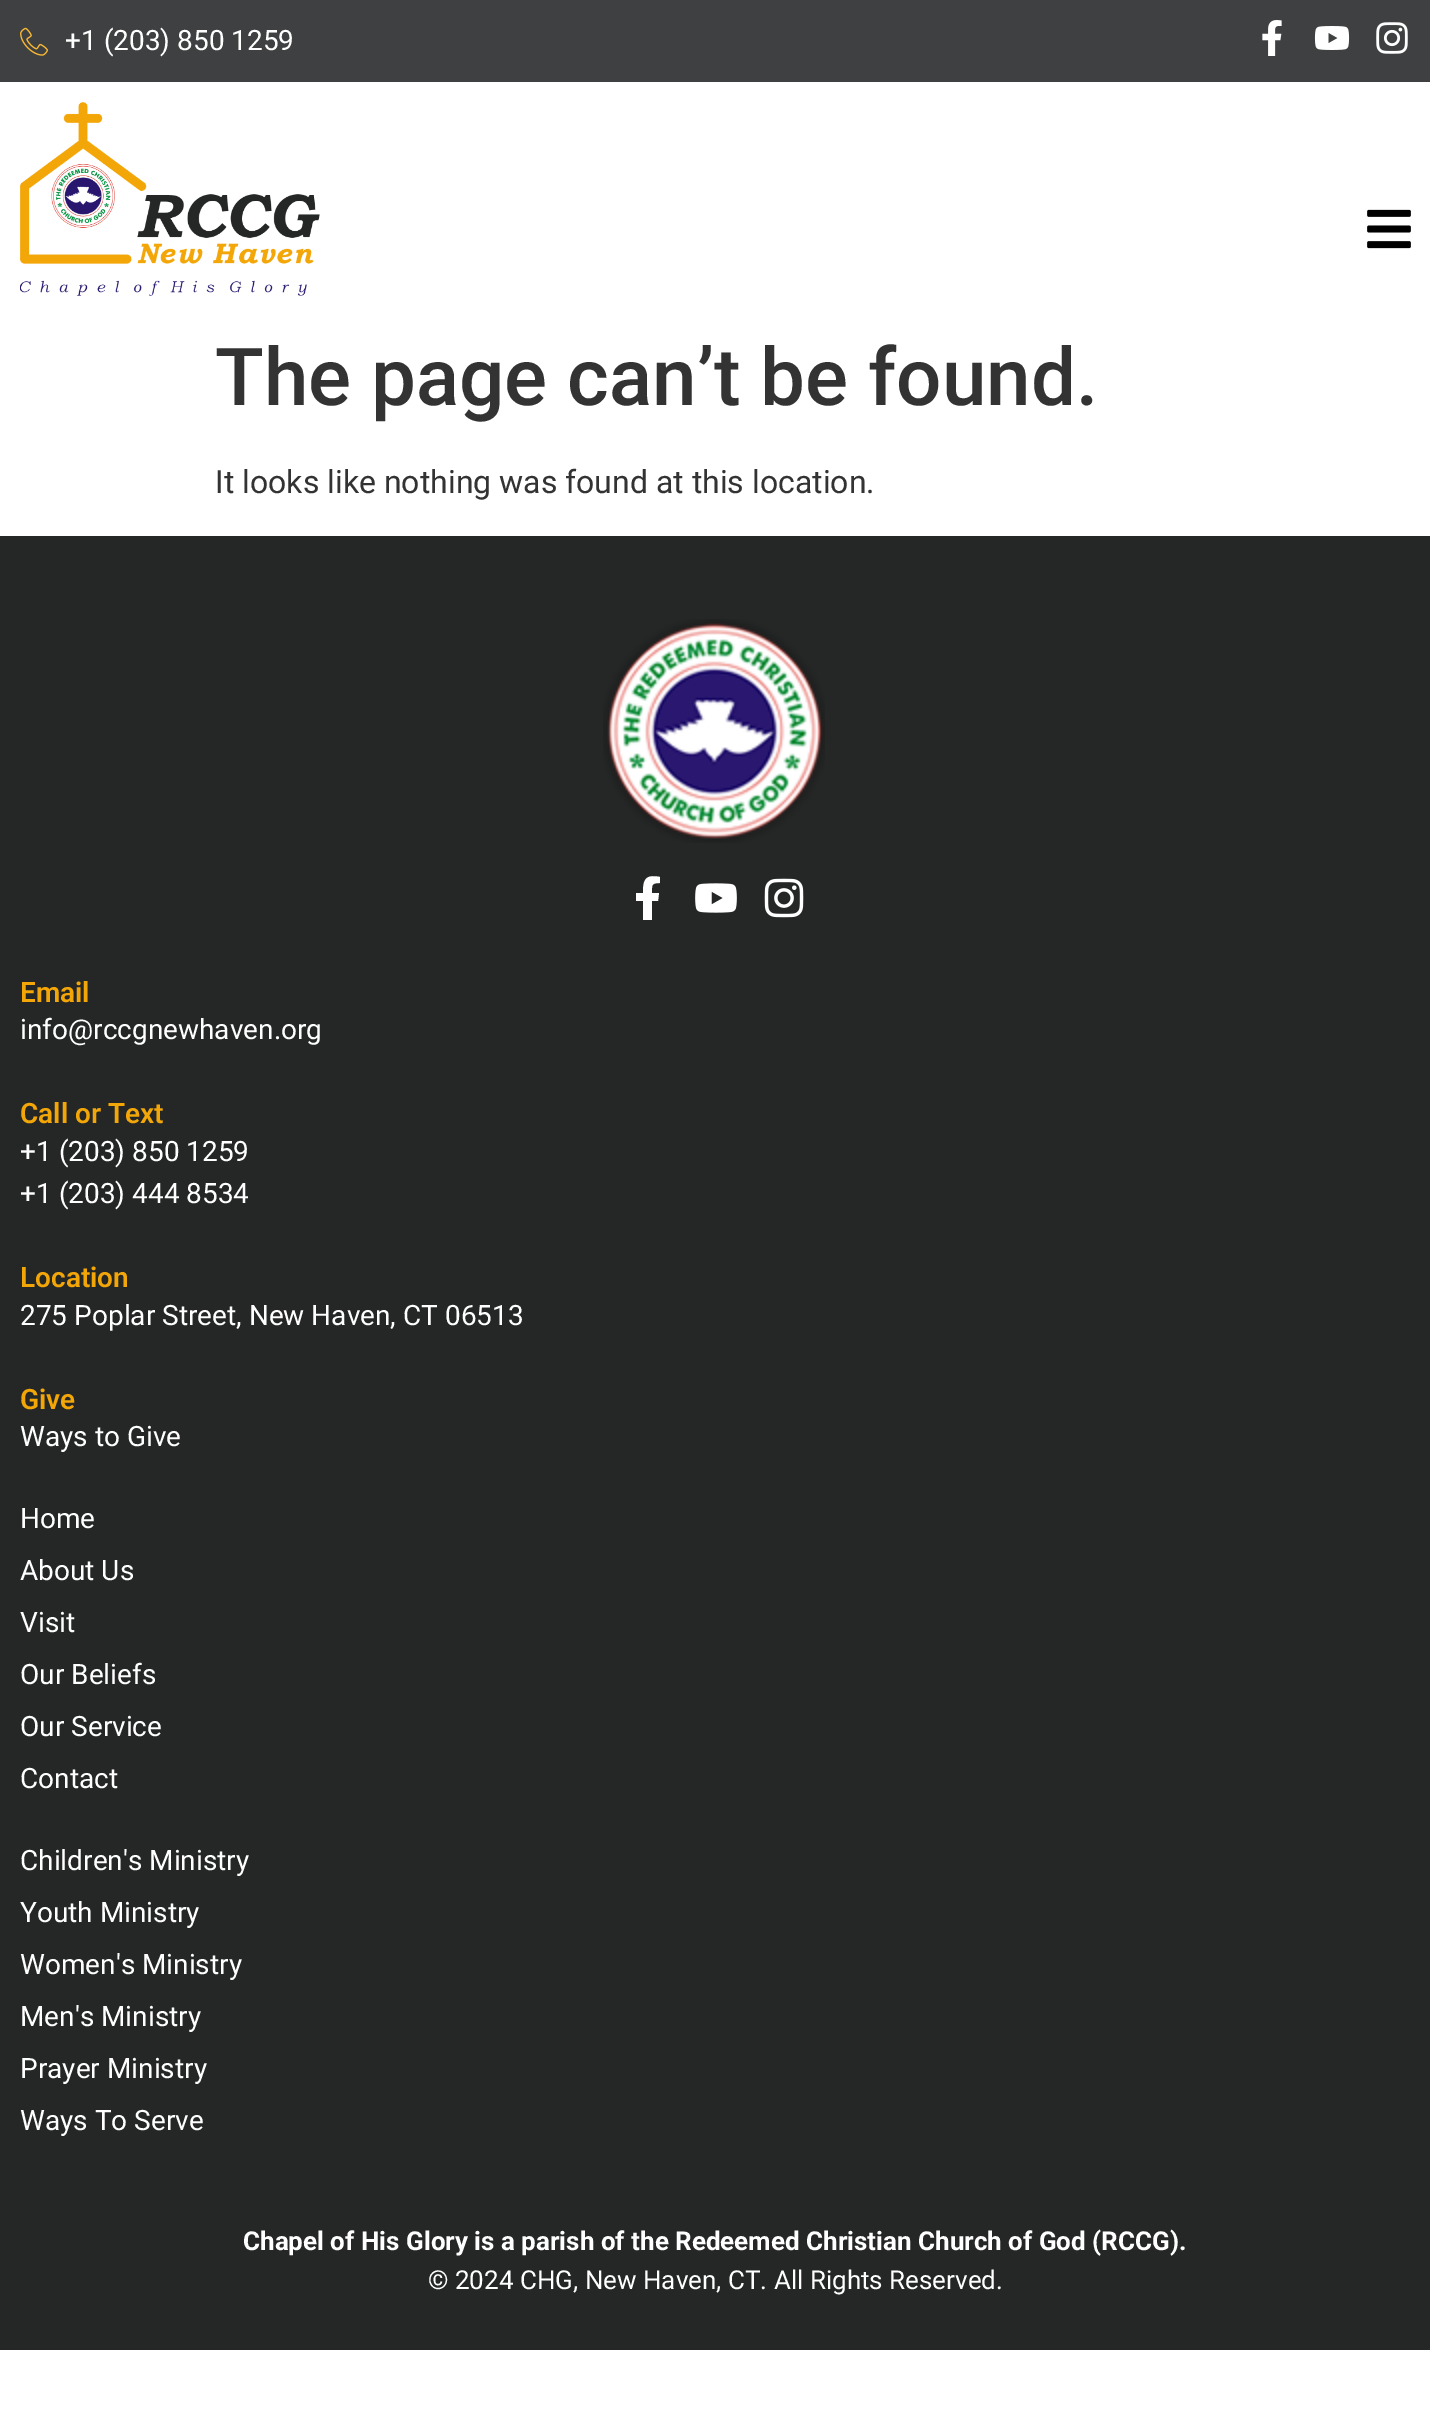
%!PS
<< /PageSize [1430 2417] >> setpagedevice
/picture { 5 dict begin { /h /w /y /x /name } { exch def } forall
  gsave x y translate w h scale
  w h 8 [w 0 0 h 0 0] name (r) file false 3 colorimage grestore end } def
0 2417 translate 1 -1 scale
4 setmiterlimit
1 setgray
0 0 1430 2417 rectfill
0.243 0.251 0.255 setrgbcolor
0 0 1430 82 rectfill
(img1.rgb) 20 27 28 29 picture
/Roboto-Regular [28 0 0 -28 0 0] selectfont
1 setgray
65 50 moveto (+1 \(203\) 850 1259) show
(img2.rgb) 1262 20 20 36 picture
(img3.rgb) 1314 26 36 24 picture
(img4.rgb) 1376 22 32 32 picture
(img5.rgb) 20 102 300 194 picture
(img6.rgb) 1367 209 44 40 picture
/Roboto-Medium [80 0 0 -80 0 0] selectfont
0.2 setgray
215 405 moveto (The page can’t be found.) show
/Roboto-Regular [32 0 0 -32 0 0] selectfont
215 493 moveto (It looks like nothing was found at this location.) show
0.145 0.153 0.153 setrgbcolor
0 536 1430 1814 rectfill
(img7.rgb) 603 619 222 224 picture
1 setgray
newpath 658 901 moveto 659 893 lineto 652 893 lineto 652 885 651 883 660 883 curveto 660 877 lineto 645 874 643 880 643 893 curveto 636 893 lineto 636 901 lineto 643 901 lineto 643 920 lineto 652 920 lineto 652 901 lineto closepath fill
(img8.rgb) 695 883 42 30 picture
(img9.rgb) 764 878 40 40 picture
/Roboto-SemiBold [28 0 0 -28 0 0] selectfont
0.953 0.651 0.031 setrgbcolor
20 1002 moveto (Email) show
/Roboto-Regular [28 0 0 -28 0 0] selectfont
1 setgray
20 1039 moveto (info@rccgnewhaven.org) show
/Roboto-SemiBold [28 0 0 -28 0 0] selectfont
0.953 0.651 0.031 setrgbcolor
20 1123 moveto (Call or Text) show
/Roboto-Regular [28 0 0 -28 0 0] selectfont
1 setgray
20 1161 moveto (+1 \(203\) 850 1259) show
20 1203 moveto (+1 \(203\) 444 8534) show
/Roboto-SemiBold [28 0 0 -28 0 0] selectfont
0.953 0.651 0.031 setrgbcolor
20 1287 moveto (Location) show
/Roboto-Regular [28 0 0 -28 0 0] selectfont
1 setgray
20 1325 moveto (275 Poplar Street, New Haven, CT 06513) show
/Roboto-SemiBold [28 0 0 -28 0 0] selectfont
0.953 0.651 0.031 setrgbcolor
20 1409 moveto (Give) show
/Roboto-Regular [28 0 0 -28 0 0] selectfont
1 setgray
20 1446 moveto (Ways to Give) show
20 1528 moveto (Home) show
20 1580 moveto (About Us) show
20 1632 moveto (Visit) show
20 1684 moveto (Our Beliefs) show
20 1736 moveto (Our Service) show
20 1788 moveto (Contact) show
20 1870 moveto (Children's Ministry) show
20 1922 moveto (Youth Ministry) show
20 1974 moveto (Women's Ministry) show
20 2026 moveto (Men's Ministry) show
20 2078 moveto (Prayer Ministry) show
20 2130 moveto (Ways To Serve) show
/Roboto-Bold [26 0 0 -26 0 0] selectfont
243 2250 moveto (Chapel of His Glory is a parish of the Redeemed Christian Church of God \(RCCG\).) show
/Roboto-Regular [26 0 0 -26 0 0] selectfont
428 2289 moveto (© 2024 CHG, New Haven, CT. All Rights Reserved.) show
showpage
